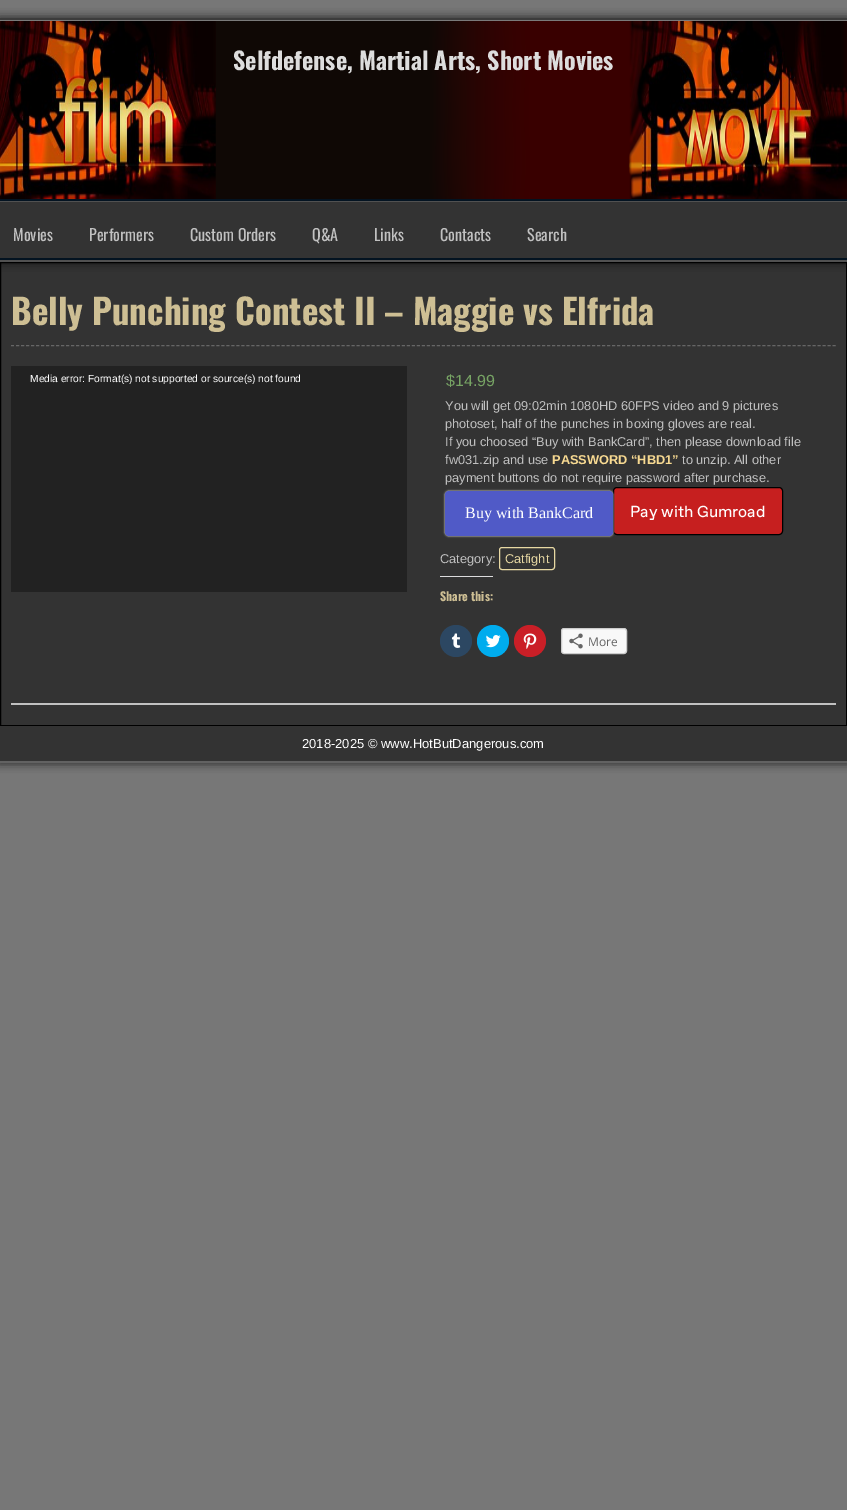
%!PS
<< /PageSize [847 1510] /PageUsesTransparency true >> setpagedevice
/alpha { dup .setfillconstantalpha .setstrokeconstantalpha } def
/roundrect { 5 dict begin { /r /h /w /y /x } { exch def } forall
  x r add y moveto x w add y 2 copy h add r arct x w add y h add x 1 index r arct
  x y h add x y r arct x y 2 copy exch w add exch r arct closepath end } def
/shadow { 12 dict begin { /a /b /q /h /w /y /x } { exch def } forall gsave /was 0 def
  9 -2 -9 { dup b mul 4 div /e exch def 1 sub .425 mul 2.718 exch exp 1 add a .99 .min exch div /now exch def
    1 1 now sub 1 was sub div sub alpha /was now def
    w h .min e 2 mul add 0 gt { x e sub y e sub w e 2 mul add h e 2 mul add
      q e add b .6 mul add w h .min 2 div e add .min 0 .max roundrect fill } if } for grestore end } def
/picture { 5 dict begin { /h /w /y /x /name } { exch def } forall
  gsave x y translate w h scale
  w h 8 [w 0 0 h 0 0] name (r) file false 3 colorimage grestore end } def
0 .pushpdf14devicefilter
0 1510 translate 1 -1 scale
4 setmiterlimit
0.467 setgray
0 0 847 1510 rectfill
0.757 setgray
0 761 847 2 rectfill
0.627 setgray
0 260 847 2 rectfill
0 setgray
-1 725 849 37 0 5 1 shadow
0.2 setgray
newpath 0.5 262.5 moveto 846.5 262.5 lineto 846.5 725.5 lineto 0.5 725.5 lineto closepath gsave fill grestore
0 setgray
stroke
-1 19 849 242 0 5 1 shadow
0.478 setgray
0 20 847 1 rectfill
0.012 0.075 0.129 setrgbcolor
0 258 847 2 rectfill
(img1.rgb) 0 21 847 178 picture
0 199 847 2 rectfill
/Oswald-Bold [24 0 0 -24 0 0] selectfont
0.867 setgray
233 70 moveto (Selfdefense, Martial Arts, Short Movies) show
0.2 setgray
0 202 847 56 rectfill
0.318 setgray
0 201 847 1 rectfill
/Oswald-Regular [16 0 0 -16 0 0] selectfont
0.757 setgray
13 241 moveto (Movies) show
89 241 moveto (Performers) show
190 241 moveto (Custom Orders) show
312 241 moveto (Q&A) show
374 241 moveto (Links) show
440 241 moveto (Contacts) show
527 241 moveto (Search) show
0.4 setgray
[3 2.01] 0 setdash
newpath 11 345.5 moveto 836 345.5 lineto stroke
/Oswald-Bold [35 0 0 -35 0 0] selectfont
0.808 0.749 0.58 setrgbcolor
11 325 moveto (Belly Punching Contest II – Maggie vs Elfrida) show
0.757 setgray
11 703 825 2 rectfill
0.133 setgray
11 366 396 226 rectfill
/LiberationSans-Regular [10.25 0 0 -10.25 0 0] selectfont
1 setgray
30 382 moveto (Media error: Format\(s\) not supported or source\(s\) not found) show
/LiberationSans-Regular [16 0 0 -16 0 0] selectfont
0.467 0.643 0.392 setrgbcolor
446 386 moveto ($14.99) show
/LiberationSans-Regular [12.8 0 0 -12.8 0 0] selectfont
0.757 setgray
445 410 moveto (You will get 09:02min 1080HD 60FPS video and 9 pictures) show
445 428 moveto (photoset, half of the punches in boxing gloves are real.) show
445 446 moveto (If you choosed “Buy with BankCard”, then please download file) show
445 464 moveto (fw031.zip and use) show
/LiberationSans-Bold [12.8 0 0 -12.8 0 0] selectfont
0.969 0.851 0.569 setrgbcolor
552 464 moveto (PASSWORD “HBD1”) show
/LiberationSans-Regular [12.8 0 0 -12.8 0 0] selectfont
0.757 setgray
682 464 moveto (to unzip. All other) show
445 482 moveto (payment buttons do not require password after purchase.) show
0.776 0.122 0.122 setrgbcolor
613.5 487.5 169 47 3.5 roundrect gsave fill grestore
0 setgray
[] 0 setdash
stroke
1 setgray
445 491 168 45 4 1 1 shadow
0.314 0.353 0.78 setrgbcolor
445 491 168 45 4 roundrect fill
/LiberationSerif-Regular [16 0 0 -16 0 0] selectfont
1 setgray
465 518 moveto (Buy with BankCard) show
/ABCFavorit-Regular [16 0 0 -16 0 0] selectfont
630 517 moveto (Pay with Gumroad) show
/LiberationSans-Regular [12.8 0 0 -12.8 0 0] selectfont
0.757 setgray
440 563 moveto (Category:) show
0.906 0.847 0.639 setrgbcolor
499.5 547.5 55 22 2.5 roundrect stroke
505 563 moveto (Catfight) show
0.863 0.863 0.871 setrgbcolor
440 576 53 1 rectfill
/Oswald-Bold [12 0 0 -12 0 0] selectfont
0.808 0.749 0.58 setrgbcolor
440 601 moveto (Share this:) show
0.173 0.278 0.384 setrgbcolor
newpath 456 641 16 0 360 arc closepath fill
(img2.rgb) 451 633 10 15 picture
0 0.675 0.933 setrgbcolor
newpath 493 641 16 0 360 arc closepath fill
(img3.rgb) 485 635 16 13 picture
0.792 0.122 0.153 setrgbcolor
newpath 530 641 16 0 360 arc closepath fill
(img4.rgb) 523 633 14 16 picture
0.184 setgray
newpath 561 651 moveto 561 658 570 655 574 655 curveto 614 655 lineto 618 655 627 658 627 651 curveto 627 653 626 654 624 654 curveto 564 654 lineto 562 654 561 653 561 651 curveto closepath fill
0.973 setgray
561.5 628.5 65 25 2.5 roundrect gsave fill grestore
0.8 setgray
stroke
(img5.rgb) 569 633 14 16 picture
/OpenSans-Regular [12 0 0 -12 0 0] selectfont
0.396 setgray
588 646 moveto (More) show
0.2 setgray
0 726 847 35 rectfill
/LiberationSans-Regular [13 0 0 -13 0 0] selectfont
1 setgray
302 748 moveto (2018-2025 © www.HotButDangerous.com) show
.poppdf14devicefilter showpage
